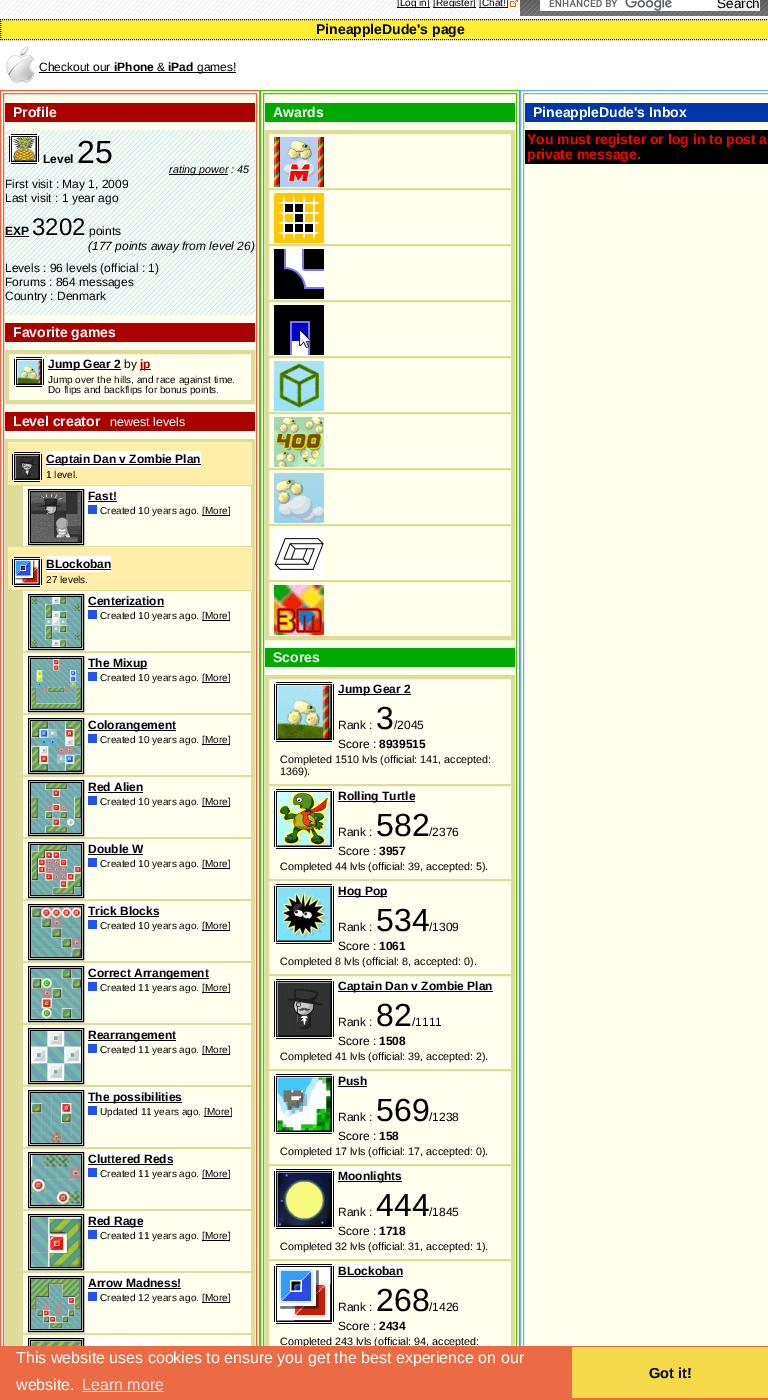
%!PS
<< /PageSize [768 1400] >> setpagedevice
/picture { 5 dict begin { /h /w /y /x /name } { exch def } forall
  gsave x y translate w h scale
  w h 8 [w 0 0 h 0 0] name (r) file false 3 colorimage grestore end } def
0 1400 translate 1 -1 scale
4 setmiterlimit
1 setgray
0 0 768 1400 rectfill
(img1.rgb) 0 0 520 16 picture
0 setgray
397 7 33 1 rectfill
/LiberationSans-Regular [10 0 0 -10 0 0] selectfont
397 6 moveto ([Log in]) show
433 7 43 1 rectfill
433 6 moveto ([Register]) show
479 7 29 1 rectfill
479 6 moveto ([Chat!]) show
(img2.rgb) 510 0 8 7 picture
(img3.rgb) 520 0 248 16 picture
1 setgray
540 0 177 11 rectfill
(img4.rgb) 549 0 123 11 picture
0.937 setgray
717 0 43 11 rectfill
/LiberationSans-Regular [13.5 0 0 -13.5 0 0] selectfont
0 setgray
717 8 moveto (Search) show
1 0.933 0.2 setrgbcolor
0 19 768 21 rectfill
0 setgray
[1 1] 0 setdash
newpath 0 19.5 moveto 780 19.5 lineto stroke
newpath 0 39.5 moveto 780 39.5 lineto stroke
newpath 0.5 19 moveto 0.5 40 lineto stroke
/LiberationSans-Bold [14 0 0 -14 0 0] selectfont
316 34 moveto (PineappleDude's page) show
(img5.rgb) 6 47 29 36 picture
/LiberationSans-Regular [12 0 0 -12 0 0] selectfont
39 71 moveto (Checkout our) show
39 72 197 1 rectfill
/LiberationSans-Bold [12 0 0 -12 0 0] selectfont
114 71 moveto (iPhone) show
/LiberationSans-Regular [12 0 0 -12 0 0] selectfont
157 71 moveto (&) show
/LiberationSans-Bold [12 0 0 -12 0 0] selectfont
168 71 moveto (iPad) show
/LiberationSans-Regular [12 0 0 -12 0 0] selectfont
197 71 moveto (games!) show
1 1 0.933 setrgbcolor
1 91 258 1255 rectfill
1 0.357 0.255 setrgbcolor
[] 0 setdash
0.5 90.5 259 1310 rectstroke
3.5 93.5 253 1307 rectstroke
0.667 0 0 setrgbcolor
5 103 250 19 rectfill
/LiberationSans-Bold [14 0 0 -14 0 0] selectfont
1 setgray
13 117 moveto (Profile) show
(img6.rgb) 5 130 250 185 picture
(img7.rgb) 9 134 30 30 picture
/LiberationSans-Bold [12 0 0 -12 0 0] selectfont
0 setgray
43 163 moveto (Level) show
/LiberationSans-Regular [32 0 0 -32 0 0] selectfont
77 163 moveto (25) show
169 174 59 1 rectfill
/LiberationSans-Italic [10.75 0 0 -10.75 0 0] selectfont
169 173 moveto (rating power : 45) show
/LiberationSans-Regular [12 0 0 -12 0 0] selectfont
5 188 moveto (First visit : May 1, 2009) show
5 202 moveto (Last visit : 1 year ago) show
/LiberationSans-Bold [12 0 0 -12 0 0] selectfont
5 235 moveto (EXP) show
5 236 24 1 rectfill
/LiberationSans-Regular [24 0 0 -24 0 0] selectfont
32 235 moveto (3202) show
/LiberationSans-Regular [12 0 0 -12 0 0] selectfont
89 235 moveto (points) show
/LiberationSans-Italic [12 0 0 -12 0 0] selectfont
88 250 moveto (\(177 points away from level 26\)) show
/LiberationSans-Regular [12 0 0 -12 0 0] selectfont
5 272 moveto (Levels : 96 levels \(official : 1\)) show
5 286 moveto (Forums : 864 messages) show
5 300 moveto (Country : Denmark) show
0.667 0 0 setrgbcolor
5 323 250 19 rectfill
/LiberationSans-Bold [14 0 0 -14 0 0] selectfont
1 setgray
13 337 moveto (Favorite games) show
0.867 0.867 0.6 setrgbcolor
3 setlinewidth
6.5 351.5 247 51 rectstroke
1 setlinewidth
8.5 353.5 243 47 rectstroke
(img8.rgb) 14 357 30 30 picture
1 setgray
48 356 73 16 rectfill
0 setgray
48 369 73 1 rectfill
/LiberationSans-Bold [12 0 0 -12 0 0] selectfont
48 368 moveto (Jump Gear 2) show
/LiberationSans-Regular [12 0 0 -12 0 0] selectfont
124 368 moveto (by) show
140 369 11 1 rectfill
/LiberationSans-Bold [12 0 0 -12 0 0] selectfont
0.667 0 0 setrgbcolor
140 368 moveto (jp) show
/LiberationSans-Regular [10 0 0 -10 0 0] selectfont
0 setgray
48 383 moveto (Jump over the hills, and race against time.) show
48 393 moveto (Do flips and backflips for bonus points.) show
0.667 0 0 setrgbcolor
5 412 250 19 rectfill
/LiberationSans-Bold [14 0 0 -14 0 0] selectfont
1 setgray
13 426 moveto (Level creator) show
/LiberationSans-Regular [12.5 0 0 -12.5 0 0] selectfont
110 426 moveto (newest levels) show
0.867 0.867 0.6 setrgbcolor
3 setlinewidth
6.5 440.5 247 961 rectstroke
1 0.933 0.667 setrgbcolor
8 442 244 43 rectfill
(img9.rgb) 12 452 30 30 picture
1 setgray
46 451 155 16 rectfill
0 setgray
46 464 155 1 rectfill
/LiberationSans-Bold [12 0 0 -12 0 0] selectfont
46 463 moveto (Captain Dan v Zombie Plan) show
/LiberationSans-Regular [10 0 0 -10 0 0] selectfont
46 478 moveto (1 level.) show
0.867 0.867 0.6 setrgbcolor
23 485 229 1 rectfill
251 485 1 62 rectfill
23 546 229 1 rectfill
8 485 15 62 rectfill
0 setgray
1 setlinewidth
28.5 489.5 55 55 rectstroke
30.5 491.5 51 51 rectstroke
(img10.rgb) 31 492 50 50 picture
1 setgray
88 488 29 16 rectfill
/LiberationSans-Bold [12 0 0 -12 0 0] selectfont
0 setgray
88 500 moveto (Fast!) show
88 501 29 1 rectfill
/LiberationSans-Regular [10 0 0 -10 0 0] selectfont
100 514 moveto (Created 10 years ago.) show
0.137 0.322 0.922 setrgbcolor
88 505 9 9 rectfill
0 setgray
202 515 28 1 rectfill
202 514 moveto ([More]) show
1 0.933 0.667 setrgbcolor
8 547 244 43 rectfill
(img11.rgb) 12 557 30 30 picture
1 setgray
46 556 65 16 rectfill
/LiberationSans-Bold [12 0 0 -12 0 0] selectfont
0 setgray
46 568 moveto (BLockoban) show
46 569 65 1 rectfill
/LiberationSans-Regular [10 0 0 -10 0 0] selectfont
46 583 moveto (27 levels.) show
0.867 0.867 0.6 setrgbcolor
23 590 229 1 rectfill
251 590 1 62 rectfill
23 651 229 2 rectfill
8 590 15 756 rectfill
0 setgray
28.5 594.5 55 55 rectstroke
30.5 596.5 51 51 rectstroke
(img12.rgb) 31 597 50 50 picture
1 setgray
88 593 76 16 rectfill
/LiberationSans-Bold [12 0 0 -12 0 0] selectfont
0 setgray
88 605 moveto (Centerization) show
88 606 76 1 rectfill
/LiberationSans-Regular [10 0 0 -10 0 0] selectfont
100 619 moveto (Created 10 years ago.) show
0.137 0.322 0.922 setrgbcolor
88 610 9 9 rectfill
0 setgray
202 620 28 1 rectfill
202 619 moveto ([More]) show
0.867 0.867 0.6 setrgbcolor
251 652 1 62 rectfill
23 713 229 2 rectfill
0 setgray
28.5 656.5 55 55 rectstroke
30.5 658.5 51 51 rectstroke
(img13.rgb) 31 659 50 50 picture
1 setgray
88 655 59 16 rectfill
0 setgray
88 668 59 1 rectfill
/LiberationSans-Bold [12 0 0 -12 0 0] selectfont
88 667 moveto (The Mixup) show
/LiberationSans-Regular [10 0 0 -10 0 0] selectfont
100 681 moveto (Created 10 years ago.) show
0.137 0.322 0.922 setrgbcolor
88 672 9 9 rectfill
0 setgray
202 682 28 1 rectfill
202 681 moveto ([More]) show
0.867 0.867 0.6 setrgbcolor
251 714 1 62 rectfill
23 775 229 2 rectfill
0 setgray
28.5 718.5 55 55 rectstroke
30.5 720.5 51 51 rectstroke
(img14.rgb) 31 721 50 50 picture
1 setgray
88 717 88 16 rectfill
0 setgray
88 730 88 1 rectfill
/LiberationSans-Bold [12 0 0 -12 0 0] selectfont
88 729 moveto (Colorangement) show
/LiberationSans-Regular [10 0 0 -10 0 0] selectfont
100 743 moveto (Created 10 years ago.) show
0.137 0.322 0.922 setrgbcolor
88 734 9 9 rectfill
0 setgray
202 744 28 1 rectfill
202 743 moveto ([More]) show
0.867 0.867 0.6 setrgbcolor
251 776 1 62 rectfill
23 837 229 2 rectfill
0 setgray
28.5 780.5 55 55 rectstroke
30.5 782.5 51 51 rectstroke
(img15.rgb) 31 783 50 50 picture
1 setgray
88 779 55 16 rectfill
/LiberationSans-Bold [12 0 0 -12 0 0] selectfont
0 setgray
88 791 moveto (Red Alien) show
88 792 55 1 rectfill
/LiberationSans-Regular [10 0 0 -10 0 0] selectfont
100 805 moveto (Created 10 years ago.) show
0.137 0.322 0.922 setrgbcolor
88 796 9 9 rectfill
0 setgray
202 806 28 1 rectfill
202 805 moveto ([More]) show
0.867 0.867 0.6 setrgbcolor
251 838 1 62 rectfill
23 899 229 2 rectfill
0 setgray
28.5 842.5 55 55 rectstroke
30.5 844.5 51 51 rectstroke
(img16.rgb) 31 845 50 50 picture
1 setgray
88 841 55 16 rectfill
/LiberationSans-Bold [12 0 0 -12 0 0] selectfont
0 setgray
88 853 moveto (Double W) show
88 854 55 1 rectfill
/LiberationSans-Regular [10 0 0 -10 0 0] selectfont
100 867 moveto (Created 10 years ago.) show
0.137 0.322 0.922 setrgbcolor
88 858 9 9 rectfill
0 setgray
202 868 28 1 rectfill
202 867 moveto ([More]) show
0.867 0.867 0.6 setrgbcolor
251 900 1 62 rectfill
23 961 229 2 rectfill
0 setgray
28.5 904.5 55 55 rectstroke
30.5 906.5 51 51 rectstroke
(img17.rgb) 31 907 50 50 picture
1 setgray
88 903 71 16 rectfill
/LiberationSans-Bold [12 0 0 -12 0 0] selectfont
0 setgray
88 915 moveto (Trick Blocks) show
88 916 71 1 rectfill
/LiberationSans-Regular [10 0 0 -10 0 0] selectfont
100 929 moveto (Created 10 years ago.) show
0.137 0.322 0.922 setrgbcolor
88 920 9 9 rectfill
0 setgray
202 930 28 1 rectfill
202 929 moveto ([More]) show
0.867 0.867 0.6 setrgbcolor
251 962 1 62 rectfill
23 1023 229 2 rectfill
0 setgray
28.5 966.5 55 55 rectstroke
30.5 968.5 51 51 rectstroke
(img18.rgb) 31 969 50 50 picture
1 setgray
88 965 121 16 rectfill
0 setgray
88 978 121 1 rectfill
/LiberationSans-Bold [12 0 0 -12 0 0] selectfont
88 977 moveto (Correct Arrangement) show
/LiberationSans-Regular [10 0 0 -10 0 0] selectfont
100 991 moveto (Created 11 years ago.) show
0.137 0.322 0.922 setrgbcolor
88 982 9 9 rectfill
0 setgray
202 992 28 1 rectfill
202 991 moveto ([More]) show
0.867 0.867 0.6 setrgbcolor
251 1024 1 62 rectfill
23 1085 229 2 rectfill
0 setgray
28.5 1028.5 55 55 rectstroke
30.5 1030.5 51 51 rectstroke
(img19.rgb) 31 1031 50 50 picture
1 setgray
88 1027 88 16 rectfill
0 setgray
88 1040 88 1 rectfill
/LiberationSans-Bold [12 0 0 -12 0 0] selectfont
88 1039 moveto (Rearrangement) show
/LiberationSans-Regular [10 0 0 -10 0 0] selectfont
100 1053 moveto (Created 11 years ago.) show
0.137 0.322 0.922 setrgbcolor
88 1044 9 9 rectfill
0 setgray
202 1054 28 1 rectfill
202 1053 moveto ([More]) show
0.867 0.867 0.6 setrgbcolor
251 1086 1 62 rectfill
23 1147 229 2 rectfill
0 setgray
28.5 1090.5 55 55 rectstroke
30.5 1092.5 51 51 rectstroke
(img20.rgb) 31 1093 50 50 picture
1 setgray
88 1089 94 16 rectfill
0 setgray
88 1102 94 1 rectfill
/LiberationSans-Bold [12 0 0 -12 0 0] selectfont
88 1101 moveto (The possibilities) show
/LiberationSans-Regular [10 0 0 -10 0 0] selectfont
100 1115 moveto (Updated 11 years ago.) show
0.137 0.322 0.922 setrgbcolor
88 1106 9 9 rectfill
0 setgray
204 1116 28 1 rectfill
204 1115 moveto ([More]) show
0.867 0.867 0.6 setrgbcolor
251 1148 1 62 rectfill
23 1209 229 2 rectfill
0 setgray
28.5 1152.5 55 55 rectstroke
30.5 1154.5 51 51 rectstroke
(img21.rgb) 31 1155 50 50 picture
1 setgray
88 1151 85 16 rectfill
/LiberationSans-Bold [12 0 0 -12 0 0] selectfont
0 setgray
88 1163 moveto (Cluttered Reds) show
88 1164 85 1 rectfill
/LiberationSans-Regular [10 0 0 -10 0 0] selectfont
100 1177 moveto (Created 11 years ago.) show
0.137 0.322 0.922 setrgbcolor
88 1168 9 9 rectfill
0 setgray
202 1178 28 1 rectfill
202 1177 moveto ([More]) show
0.867 0.867 0.6 setrgbcolor
251 1210 1 62 rectfill
23 1271 229 2 rectfill
0 setgray
28.5 1214.5 55 55 rectstroke
30.5 1216.5 51 51 rectstroke
(img22.rgb) 31 1217 50 50 picture
1 setgray
88 1213 55 16 rectfill
0 setgray
88 1226 55 1 rectfill
/LiberationSans-Bold [12 0 0 -12 0 0] selectfont
88 1225 moveto (Red Rage) show
/LiberationSans-Regular [10 0 0 -10 0 0] selectfont
100 1239 moveto (Created 11 years ago.) show
0.137 0.322 0.922 setrgbcolor
88 1230 9 9 rectfill
0 setgray
202 1240 28 1 rectfill
202 1239 moveto ([More]) show
0.867 0.867 0.6 setrgbcolor
251 1272 1 62 rectfill
23 1333 229 2 rectfill
0 setgray
28.5 1276.5 55 55 rectstroke
30.5 1278.5 51 51 rectstroke
(img23.rgb) 31 1279 50 50 picture
1 setgray
88 1275 93 16 rectfill
/LiberationSans-Bold [12 0 0 -12 0 0] selectfont
0 setgray
88 1287 moveto (Arrow Madness!) show
88 1288 93 1 rectfill
/LiberationSans-Regular [10 0 0 -10 0 0] selectfont
100 1301 moveto (Created 12 years ago.) show
0.137 0.322 0.922 setrgbcolor
88 1292 9 9 rectfill
0 setgray
202 1302 28 1 rectfill
202 1301 moveto ([More]) show
0.867 0.867 0.6 setrgbcolor
251 1334 1 12 rectfill
0 setgray
28.5 1338.5 55 55 rectstroke
30.5 1340.5 51 51 rectstroke
(img24.rgb) 31 1341 50 5 picture
1 setgray
88 1337 67 9 rectfill
1 1 0.933 setrgbcolor
261 91 258 1255 rectfill
0.302 0.776 0.008 setrgbcolor
260.5 90.5 259 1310 rectstroke
263.5 93.5 253 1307 rectstroke
0 0.667 0 setrgbcolor
265 103 250 19 rectfill
/LiberationSans-Bold [14 0 0 -14 0 0] selectfont
1 setgray
273 117 moveto (Awards) show
0.867 0.867 0.6 setrgbcolor
3 setlinewidth
266.5 131.5 247 507 rectstroke
1 setlinewidth
268.5 133.5 243 55 rectstroke
(img25.rgb) 274 137 50 50 picture
268.5 189.5 243 55 rectstroke
(img26.rgb) 274 193 50 50 picture
268.5 245.5 243 55 rectstroke
(img27.rgb) 274 249 50 50 picture
268.5 301.5 243 55 rectstroke
(img28.rgb) 274 305 50 50 picture
268.5 357.5 243 55 rectstroke
(img29.rgb) 274 361 50 50 picture
268.5 413.5 243 55 rectstroke
(img30.rgb) 274 417 50 50 picture
268.5 469.5 243 55 rectstroke
(img31.rgb) 274 473 50 50 picture
268.5 525.5 243 55 rectstroke
(img32.rgb) 274 529 50 50 picture
268.5 581.5 243 55 rectstroke
(img33.rgb) 274 585 50 50 picture
0 0.667 0 setrgbcolor
265 648 250 19 rectfill
1 setgray
273 662 moveto (Scores) show
0.867 0.867 0.6 setrgbcolor
3 setlinewidth
266.5 676.5 247 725 rectstroke
1 setlinewidth
268.5 678.5 243 106 rectstroke
(img34.rgb) 274 682 60 60 picture
1 setgray
338 681 73 16 rectfill
0 setgray
338 694 73 1 rectfill
/LiberationSans-Bold [12 0 0 -12 0 0] selectfont
338 693 moveto (Jump Gear 2) show
/LiberationSans-Regular [12 0 0 -12 0 0] selectfont
338 729 moveto (Rank :) show
/LiberationSans-Regular [32 0 0 -32 0 0] selectfont
376 729 moveto (3) show
/LiberationSans-Regular [12 0 0 -12 0 0] selectfont
394 729 moveto (/2045) show
338 748 moveto (Score :) show
/LiberationSans-Bold [12 0 0 -12 0 0] selectfont
379 748 moveto (8939515) show
/LiberationSans-Regular [10.75 0 0 -10.75 0 0] selectfont
280 763 moveto (Completed 1510 lvls \(official: 141, accepted:) show
280 775 moveto (1369\).) show
0.867 0.867 0.6 setrgbcolor
268.5 785.5 243 94 rectstroke
(img35.rgb) 274 789 60 60 picture
1 setgray
338 788 77 16 rectfill
0 setgray
338 801 77 1 rectfill
/LiberationSans-Bold [12 0 0 -12 0 0] selectfont
338 800 moveto (Rolling Turtle) show
/LiberationSans-Regular [12 0 0 -12 0 0] selectfont
338 836 moveto (Rank :) show
/LiberationSans-Regular [32 0 0 -32 0 0] selectfont
376 836 moveto (582) show
/LiberationSans-Regular [12 0 0 -12 0 0] selectfont
429 836 moveto (/2376) show
338 855 moveto (Score :) show
/LiberationSans-Bold [12 0 0 -12 0 0] selectfont
379 855 moveto (3957) show
/LiberationSans-Regular [10.75 0 0 -10.75 0 0] selectfont
280 870 moveto (Completed 44 lvls \(official: 39, accepted: 5\).) show
0.867 0.867 0.6 setrgbcolor
268.5 880.5 243 94 rectstroke
(img36.rgb) 274 884 60 60 picture
1 setgray
338 883 49 16 rectfill
0 setgray
338 896 49 1 rectfill
/LiberationSans-Bold [12 0 0 -12 0 0] selectfont
338 895 moveto (Hog Pop) show
/LiberationSans-Regular [12 0 0 -12 0 0] selectfont
338 931 moveto (Rank :) show
/LiberationSans-Regular [32 0 0 -32 0 0] selectfont
376 931 moveto (534) show
/LiberationSans-Regular [12 0 0 -12 0 0] selectfont
429 931 moveto (/1309) show
338 950 moveto (Score :) show
/LiberationSans-Bold [12 0 0 -12 0 0] selectfont
379 950 moveto (1061) show
/LiberationSans-Regular [10.75 0 0 -10.75 0 0] selectfont
280 965 moveto (Completed 8 lvls \(official: 8, accepted: 0\).) show
0.867 0.867 0.6 setrgbcolor
268.5 975.5 243 94 rectstroke
(img37.rgb) 274 979 60 60 picture
1 setgray
338 978 155 16 rectfill
0 setgray
338 991 155 1 rectfill
/LiberationSans-Bold [12 0 0 -12 0 0] selectfont
338 990 moveto (Captain Dan v Zombie Plan) show
/LiberationSans-Regular [12 0 0 -12 0 0] selectfont
338 1026 moveto (Rank :) show
/LiberationSans-Regular [32 0 0 -32 0 0] selectfont
376 1026 moveto (82) show
/LiberationSans-Regular [12 0 0 -12 0 0] selectfont
412 1026 moveto (/1111) show
338 1045 moveto (Score :) show
/LiberationSans-Bold [12 0 0 -12 0 0] selectfont
379 1045 moveto (1508) show
/LiberationSans-Regular [10.75 0 0 -10.75 0 0] selectfont
280 1060 moveto (Completed 41 lvls \(official: 39, accepted: 2\).) show
0.867 0.867 0.6 setrgbcolor
268.5 1070.5 243 94 rectstroke
(img38.rgb) 274 1074 60 60 picture
1 setgray
338 1073 29 16 rectfill
/LiberationSans-Bold [12 0 0 -12 0 0] selectfont
0 setgray
338 1085 moveto (Push) show
338 1086 29 1 rectfill
/LiberationSans-Regular [12 0 0 -12 0 0] selectfont
338 1121 moveto (Rank :) show
/LiberationSans-Regular [32 0 0 -32 0 0] selectfont
376 1121 moveto (569) show
/LiberationSans-Regular [12 0 0 -12 0 0] selectfont
429 1121 moveto (/1238) show
338 1140 moveto (Score :) show
/LiberationSans-Bold [12 0 0 -12 0 0] selectfont
379 1140 moveto (158) show
/LiberationSans-Regular [10.75 0 0 -10.75 0 0] selectfont
280 1155 moveto (Completed 17 lvls \(official: 17, accepted: 0\).) show
0.867 0.867 0.6 setrgbcolor
268.5 1165.5 243 94 rectstroke
(img39.rgb) 274 1169 60 60 picture
1 setgray
338 1168 64 16 rectfill
0 setgray
338 1181 64 1 rectfill
/LiberationSans-Bold [12 0 0 -12 0 0] selectfont
338 1180 moveto (Moonlights) show
/LiberationSans-Regular [12 0 0 -12 0 0] selectfont
338 1216 moveto (Rank :) show
/LiberationSans-Regular [32 0 0 -32 0 0] selectfont
376 1216 moveto (444) show
/LiberationSans-Regular [12 0 0 -12 0 0] selectfont
429 1216 moveto (/1845) show
338 1235 moveto (Score :) show
/LiberationSans-Bold [12 0 0 -12 0 0] selectfont
379 1235 moveto (1718) show
/LiberationSans-Regular [10.75 0 0 -10.75 0 0] selectfont
280 1250 moveto (Completed 32 lvls \(official: 31, accepted: 1\).) show
0.867 0.867 0.6 setrgbcolor
268.5 1260.5 243 106 rectstroke
(img40.rgb) 274 1264 60 60 picture
1 setgray
338 1263 65 16 rectfill
/LiberationSans-Bold [12 0 0 -12 0 0] selectfont
0 setgray
338 1275 moveto (BLockoban) show
338 1276 65 1 rectfill
/LiberationSans-Regular [12 0 0 -12 0 0] selectfont
338 1311 moveto (Rank :) show
/LiberationSans-Regular [32 0 0 -32 0 0] selectfont
376 1311 moveto (268) show
/LiberationSans-Regular [12 0 0 -12 0 0] selectfont
429 1311 moveto (/1426) show
338 1330 moveto (Score :) show
/LiberationSans-Bold [12 0 0 -12 0 0] selectfont
379 1330 moveto (2434) show
/LiberationSans-Regular [10.75 0 0 -10.75 0 0] selectfont
280 1345 moveto (Completed 243 lvls \(official: 94, accepted:) show
1 1 0.933 setrgbcolor
521 91 247 1255 rectfill
0.427 0.686 0.957 setrgbcolor
520.5 90.5 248 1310 rectstroke
523.5 93.5 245 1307 rectstroke
0 0.22 0.667 setrgbcolor
525 103 243 19 rectfill
/LiberationSans-Bold [14 0 0 -14 0 0] selectfont
1 setgray
533 117 moveto (PineappleDude's Inbox) show
0 setgray
525 130 243 34 rectfill
1 0 0 setrgbcolor
527 144 moveto (You must register or log in to post a) show
527 159 moveto (private message.) show
0.922 0.424 0.267 setrgbcolor
0 1346 768 54 rectfill
/LiberationSans-Regular [16 0 0 -16 0 0] selectfont
1 setgray
16 1363 moveto (This website uses cookies to ensure you get the best experience on our) show
16 1390 moveto (website.) show
0.984 0.886 0.855 setrgbcolor
82 1390 moveto (Learn more) show
82 1391 82 1 rectfill
0.961 0.851 0.282 setrgbcolor
572 1347 196 51 rectfill
/LiberationSans-Bold [14.5 0 0 -14.5 0 0] selectfont
0 setgray
649 1378 moveto (Got it!) show
showpage
